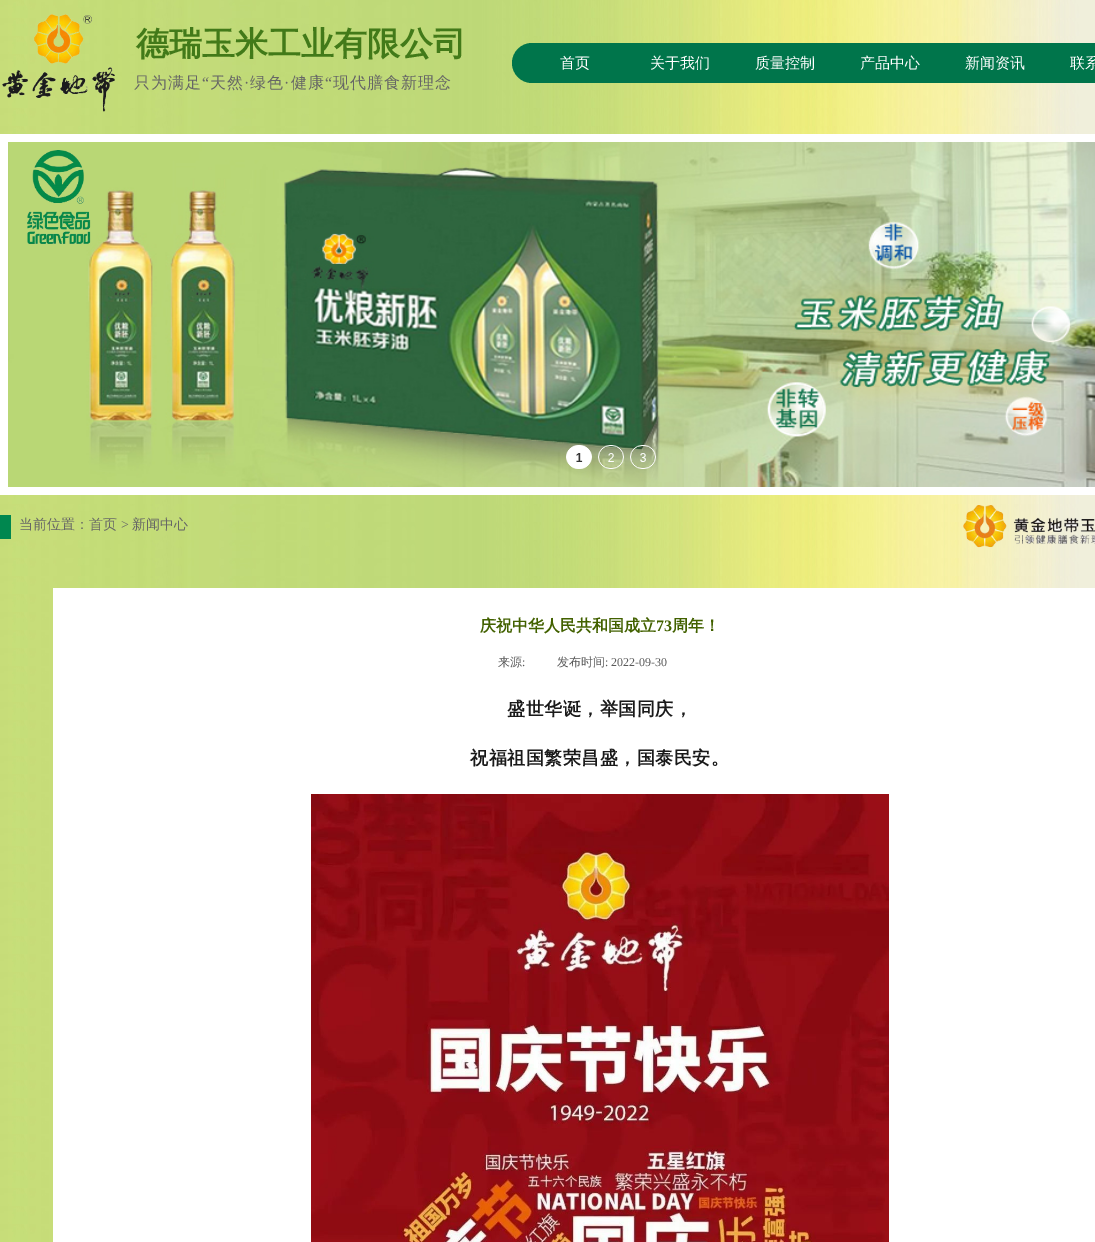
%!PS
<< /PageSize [1095 1242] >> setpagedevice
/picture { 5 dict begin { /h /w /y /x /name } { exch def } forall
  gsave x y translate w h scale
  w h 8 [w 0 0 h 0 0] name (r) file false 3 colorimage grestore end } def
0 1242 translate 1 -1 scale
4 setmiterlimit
1 setgray
0 0 1095 1242 rectfill
(img1.rgb) 0 0 1095 1242 picture
(img2.rgb) 2 14 113 98 picture
/WenQuanYiZenHei-Bold [33 0 0 -33 0 0] selectfont
0.259 0.478 0.098 setrgbcolor
136 55 moveto (德瑞玉米工业有限公司) show
0 0.459 0.294 setrgbcolor
newpath 532 43 moveto 1095 43 lineto 1095 83 lineto 532 83 lineto 521 83 512 74 512 63 curveto 512 52 521 43 532 43 curveto closepath fill
/WenQuanYiZenHei-Medium [15 0 0 -15 0 0] selectfont
1 setgray
560 68 moveto (首页) show
650 68 moveto (关于我们) show
755 68 moveto (质量控制) show
860 68 moveto (产品中心) show
965 68 moveto (新闻资讯) show
1070 68 moveto (联系) show
/WenQuanYiZenHei-Medium [16 0 0 -16 0 0] selectfont
0.4 setgray
134 88 moveto 1 0 (只为满足) ashow
/LiberationSerif-Regular [16 0 0 -16 0 0] selectfont
202 88 moveto 1 0 (“) ashow
/WenQuanYiZenHei-Medium [16 0 0 -16 0 0] selectfont
210 88 moveto 1 0 (天然) ashow
250 88 moveto 1 0 (绿色) ashow
291 88 moveto 1 0 (健康) ashow
/LiberationSerif-Regular [16 0 0 -16 0 0] selectfont
325 88 moveto 1 0 (“) ashow
/WenQuanYiZenHei-Medium [16 0 0 -16 0 0] selectfont
333 88 moveto 1 0 (现代膳食新理念) ashow
/LiberationSerif-Regular [16 0 0 -16 0 0] selectfont
244 88 moveto 1 0 (·) ashow
284 88 moveto 1 0 (·) ashow
1 setgray
0 134 1095 361 rectfill
(img3.rgb) 8 142 1087 345 picture
(img4.rgb) 27 150 64 94 picture
0 0.529 0.31 setrgbcolor
0 515 11 24 rectfill
/WenQuanYiZenHei-Medium [14 0 0 -14 0 0] selectfont
0.4 setgray
19 529 moveto (当前位置：首页) show
/LiberationSerif-Regular [14 0 0 -14 0 0] selectfont
121 529 moveto (>) show
/WenQuanYiZenHei-Medium [14 0 0 -14 0 0] selectfont
132 529 moveto (新闻中心) show
(img5.rgb) 963 505 132 43 picture
1 setgray
53 588 1042 654 rectfill
/WenQuanYiZenHei-Bold [16 0 0 -16 0 0] selectfont
0.259 0.38 0 setrgbcolor
480 631 moveto (庆祝中华人民共和国成立) show
/LiberationSerif-Bold [16 0 0 -16 0 0] selectfont
656 631 moveto (73) show
/WenQuanYiZenHei-Bold [16 0 0 -16 0 0] selectfont
672 631 moveto (周年！) show
/WenQuanYiZenHei-Medium [12 0 0 -12 0 0] selectfont
0.353 setgray
498 666 moveto (来源) show
/LiberationSerif-Regular [12 0 0 -12 0 0] selectfont
522 666 moveto (:) show
/WenQuanYiZenHei-Medium [12 0 0 -12 0 0] selectfont
557 666 moveto (发布时间) show
/LiberationSerif-Regular [12 0 0 -12 0 0] selectfont
605 666 moveto (: 2022-09-30) show
/WenQuanYiZenHei-Bold [18 0 0 -18 0 0] selectfont
0.102 setgray
507 715 moveto 0.5 0 (盛世华诞，举国同庆，) ashow
470 764 moveto 0.5 0 (祝福祖国繁荣昌盛，国泰民安。) ashow
(img6.rgb) 311 794 578 448 picture
showpage
